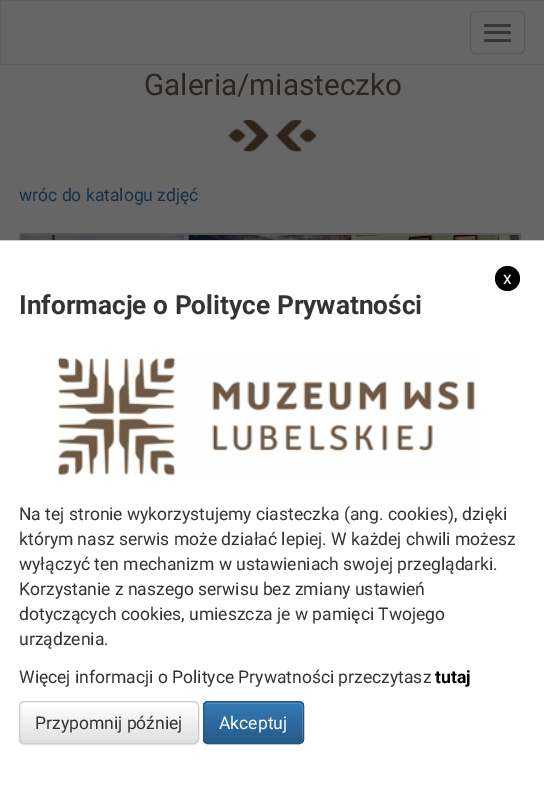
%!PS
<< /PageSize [544 806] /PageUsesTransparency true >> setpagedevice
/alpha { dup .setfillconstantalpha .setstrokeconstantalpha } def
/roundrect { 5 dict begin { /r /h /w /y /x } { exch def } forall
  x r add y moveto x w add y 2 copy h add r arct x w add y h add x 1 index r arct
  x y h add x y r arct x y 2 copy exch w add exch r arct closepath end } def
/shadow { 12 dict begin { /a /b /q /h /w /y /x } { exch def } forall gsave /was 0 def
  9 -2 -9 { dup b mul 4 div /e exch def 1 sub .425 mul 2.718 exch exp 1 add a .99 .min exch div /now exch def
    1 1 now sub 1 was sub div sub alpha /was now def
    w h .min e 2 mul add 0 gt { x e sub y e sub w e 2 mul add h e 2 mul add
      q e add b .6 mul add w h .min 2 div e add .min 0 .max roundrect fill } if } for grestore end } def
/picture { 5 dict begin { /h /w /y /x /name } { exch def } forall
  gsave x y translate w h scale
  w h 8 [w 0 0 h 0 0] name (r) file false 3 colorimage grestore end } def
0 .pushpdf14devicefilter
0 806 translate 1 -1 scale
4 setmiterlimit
0.4 setgray
0 0 544 806 rectfill
0.361 setgray
0.5 0.5 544 64 rectstroke
0.345 setgray
470.5 11.5 54 42 4.5 roundrect stroke
0.212 setgray
484 24 27 3 1.5 roundrect fill
484 31 27 3 1.5 roundrect fill
484 39 27 3 1.5 roundrect fill
/Roboto-Regular [29.75 0 0 -29.75 0 0] selectfont
0.176 0.149 0.125 setrgbcolor
144 95 moveto (Galeria/miasteczko) show
(img1.rgb) 228 120 89 32 picture
/Roboto-Regular [17.5 0 0 -17.5 0 0] selectfont
0.078 0.192 0.286 setrgbcolor
19 201 moveto (wróc do katalogu zdjęć) show
0.325 setgray
3 setlinewidth
20.5 234.5 164 110 rectstroke
(img2.rgb) 21 235 163 5 picture
187.5 234.5 165 110 rectstroke
(img3.rgb) 188 235 164 5 picture
355.5 234.5 164 110 rectstroke
(img4.rgb) 356 235 163 5 picture
1 setgray
0 241 544 565 rectfill
0.8 setgray
0 240 544 1 rectfill
0 setgray
newpath 507.5 278.5 12.5 0 360 arc closepath fill
1 setgray
503 284 moveto (x) show
/Roboto-Bold [26.25 0 0 -26.25 0 0] selectfont
0.2 setgray
19 314 moveto (Informacje o Polityce Prywatności) show
(img5.rgb) 57 357 419 119 picture
/Roboto-Regular [17.5 0 0 -17.5 0 0] selectfont
19 520 moveto (Na tej stronie wykorzystujemy ciasteczka \(ang. cookies\), dzięki) show
19 545 moveto (którym nasz serwis może działać lepiej. W każdej chwili możesz) show
19 570 moveto (wyłączyć ten mechanizm w ustawieniach swojej przeglądarki.) show
19 595 moveto (Korzystanie z naszego serwisu bez zmiany ustawień) show
19 620 moveto (dotyczących cookies, umieszcza je w pamięci Twojego) show
19 645 moveto (urządzenia.) show
19 683 moveto (Więcej informacji o Polityce Prywatności przeczytasz) show
/Roboto-Bold [17.5 0 0 -17.5 0 0] selectfont
0 setgray
435 683 moveto (tutaj) show
19 703 180 42 5 0.5 0.07 shadow
1 setgray
19 701 180 43 5 roundrect fill
gsave
19 701 180 43 5 roundrect clip newpath
gsave newpath 19 703 moveto 199 703 lineto 199 743 lineto 19 743 lineto closepath clip newpath
<< /ShadingType 2 /ColorSpace /DeviceRGB /Coords [109 703 109 743] /Extend [true true] /Function << /FunctionType 2 /Domain [0 1] /C0 [1 1 1] /C1 [0.878 0.878 0.878] /N 1 >> >> shfill grestore
grestore
0.8 setgray
1 setlinewidth
19.5 701.5 179 42 4.5 roundrect stroke
/Roboto-Regular [17.5 0 0 -17.5 0 0] selectfont
0.2 setgray
35 729 moveto (Przypomnij później) show
0 setgray
203 703 101 42 5 0.5 0.07 shadow
0.2 0.478 0.718 setrgbcolor
203 701 101 43 5 roundrect fill
gsave
203 701 101 43 5 roundrect clip newpath
gsave newpath 203 703 moveto 304 703 lineto 304 743 lineto 203 743 lineto closepath clip newpath
<< /ShadingType 2 /ColorSpace /DeviceRGB /Coords [253 703 253 743] /Extend [true true] /Function << /FunctionType 2 /Domain [0 1] /C0 [0.2 0.478 0.718] /C1 [0.149 0.353 0.533] /N 1 >> >> shfill grestore
grestore
0.15 alpha
1 setgray
newpath 208 704 moveto 299 704 lineto 303 704 302 711 302 713 curveto 302 742 lineto 302 741 303 740 303 739 curveto 303 707 lineto 303 705 301 703 299 703 curveto 208 703 lineto 206 703 204 705 204 707 curveto 204 708 lineto 204 705 205 704 208 704 curveto closepath fill
1 alpha
0.141 0.333 0.502 setrgbcolor
203.5 701.5 100 42 4.5 roundrect stroke
1 setgray
219 729 moveto (Akceptuj) show
.poppdf14devicefilter showpage
